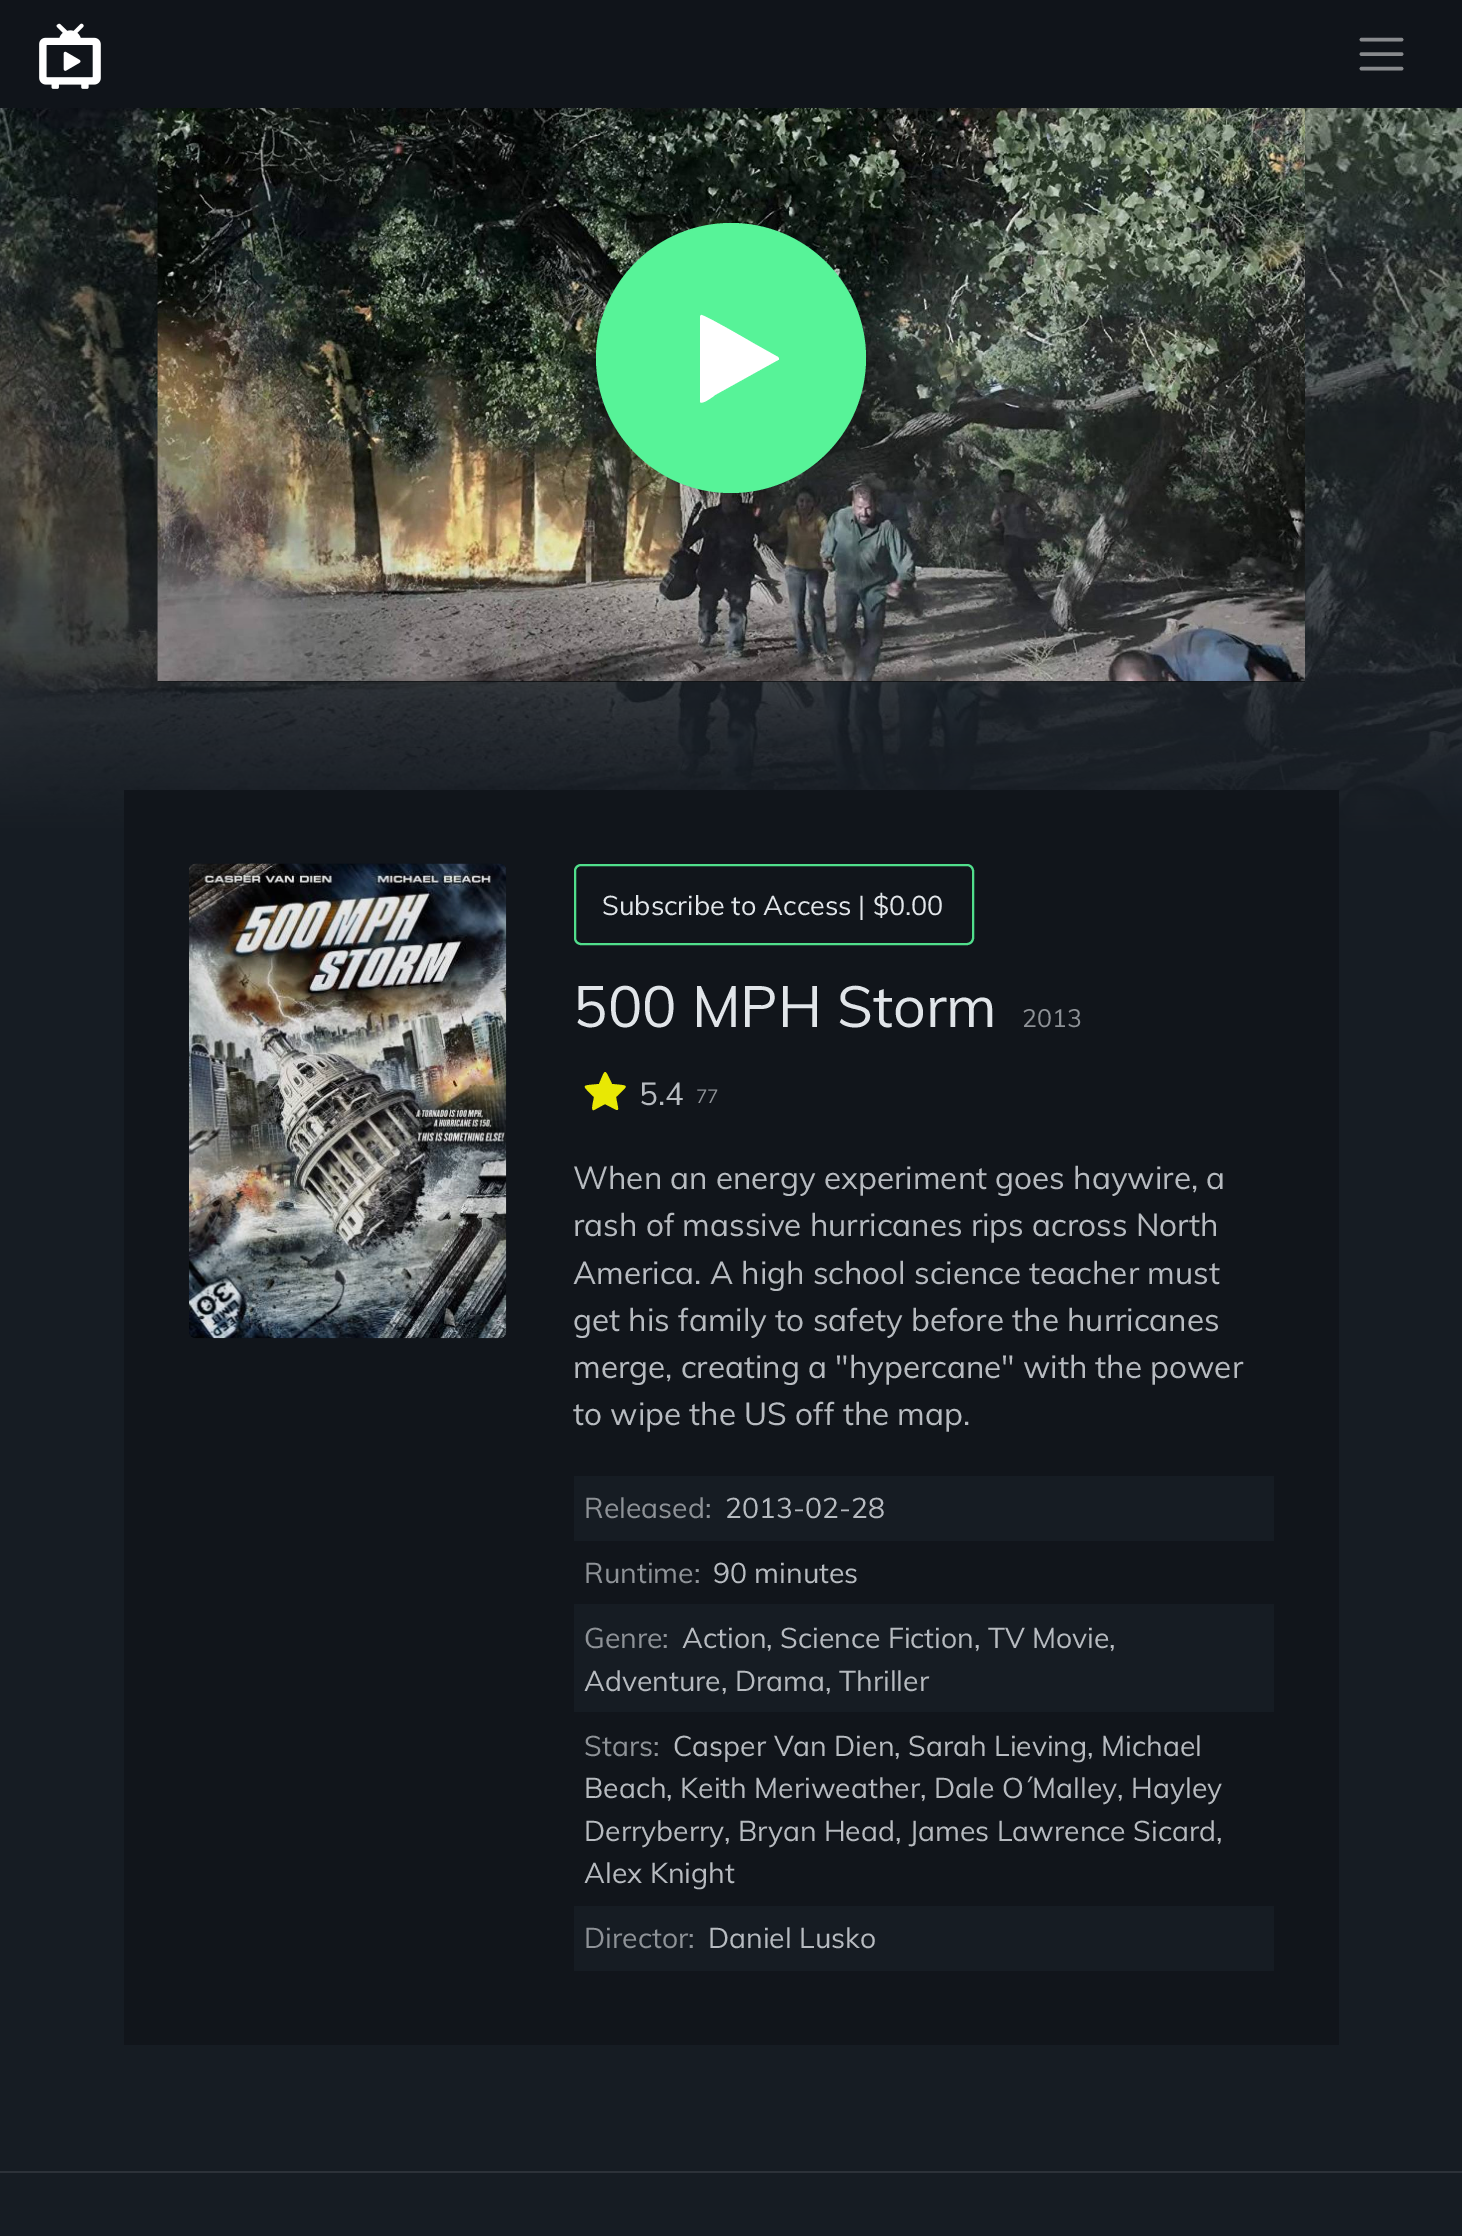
%!PS
<< /PageSize [1462 2236] /PageUsesTransparency true >> setpagedevice
/alpha { dup .setfillconstantalpha .setstrokeconstantalpha } def
/roundrect { 5 dict begin { /r /h /w /y /x } { exch def } forall
  x r add y moveto x w add y 2 copy h add r arct x w add y h add x 1 index r arct
  x y h add x y r arct x y 2 copy exch w add exch r arct closepath end } def
/picture { 5 dict begin { /h /w /y /x /name } { exch def } forall
  gsave x y translate w h scale
  w h 8 [w 0 0 h 0 0] name (r) file false 3 colorimage grestore end } def
0 .pushpdf14devicefilter
0 2236 translate 1 -1 scale
4 setmiterlimit
0.086 0.11 0.137 setrgbcolor
0 0 1462 2236 rectfill
0.063 0.078 0.102 setrgbcolor
0 0 1462 108 rectfill
(img1.rgb) 39 23 62 66 picture
0.533 0.541 0.553 setrgbcolor
3.6 setlinewidth
1 setlinecap
newpath 1361.5 39.5 moveto 1401.5 39.5 lineto 1361.5 54 moveto 1401.5 54 lineto 1361.5 68.5 moveto 1401.5 68.5 lineto stroke
(img2.rgb) 0 108 1462 724 picture
0.8 alpha
0.024 0.031 0.039 setrgbcolor
158 681 1147 1 rectfill
1 alpha
(img3.rgb) 157 108 1148 574 picture
(img4.rgb) 157 108 1148 574 picture
0.341 0.953 0.596 setrgbcolor
newpath 731 358 135 0 360 arc closepath fill
1 setgray
newpath 778 360 moveto 715 395 lineto 714 396 702 405 700 402 curveto 700 316 lineto 701 315 lineto 703 314 748 340 753 343 curveto 778 357 lineto 779 358 lineto 779 359 779 360 778 360 curveto closepath fill
0.9 alpha
0.063 0.078 0.102 setrgbcolor
124 790 1215 1255 rectfill
1 alpha
(img5.rgb) 189 863 318 476 picture
0.318 0.871 0.549 setrgbcolor
2 setlinewidth
0 setlinecap
575 865 398 79 6 roundrect stroke
/Muli-Regular [27 0 0 -27 0 0] selectfont
0.882 0.898 0.914 setrgbcolor
602 915 moveto (Subscribe to Access | $0.00) show
/Muli-Regular [57.5 0 0 -57.5 0 0] selectfont
573 1027 moveto (500 MPH Storm) show
/Muli-Regular [25 0 0 -25 0 0] selectfont
0.557 0.573 0.592 setrgbcolor
1022 1027 moveto (2013) show
0.91 0.91 0.016 setrgbcolor
newpath 594 1110 moveto 590 1112 594 1099 594 1097 curveto 581 1084 581 1086 599 1084 curveto 606 1068 604 1068 612 1084 curveto 630 1086 629 1084 616 1097 curveto 619 1114 621 1112 605 1104 curveto closepath fill
/Muli-Regular [31.5 0 0 -31.5 0 0] selectfont
0.718 0.733 0.753 setrgbcolor
639 1105 moveto (5.4) show
/Muli-Regular [19 0 0 -19 0 0] selectfont
0.557 0.573 0.592 setrgbcolor
696 1103 moveto (77) show
/Muli-Regular [31.5 0 0 -31.5 0 0] selectfont
0.718 0.733 0.753 setrgbcolor
573 1189 moveto (When an energy experiment goes haywire, a) show
573 1236 moveto (rash of massive hurricanes rips across North) show
573 1284 moveto (America. A high school science teacher must) show
573 1331 moveto (get his family to safety before the hurricanes) show
573 1378 moveto (merge, creating a "hypercane" with the power) show
573 1425 moveto (to wipe the US off the map.) show
0.086 0.11 0.137 setrgbcolor
574 1476 700 65 rectfill
/Muli-Regular [28.35 0 0 -28.35 0 0] selectfont
0.557 0.573 0.592 setrgbcolor
584 1518 moveto (Released:) show
0.718 0.733 0.753 setrgbcolor
725 1518 moveto (2013-02-28) show
0.557 0.573 0.592 setrgbcolor
584 1583 moveto (Runtime:) show
0.718 0.733 0.753 setrgbcolor
713 1583 moveto (90 minutes) show
0.086 0.11 0.137 setrgbcolor
574 1604 700 108 rectfill
0.557 0.573 0.592 setrgbcolor
584 1648 moveto (Genre:) show
0.718 0.733 0.753 setrgbcolor
682 1648 moveto (Action, Science Fiction, TV Movie,) show
584 1691 moveto (Adventure, Drama, Thriller) show
0.557 0.573 0.592 setrgbcolor
584 1756 moveto (Stars:) show
0.718 0.733 0.753 setrgbcolor
673 1756 moveto (Casper Van Dien, Sarah Lieving, Michael) show
584 1798 moveto (Beach, Keith Meriweather, Dale O´Malley, Hayley) show
584 1841 moveto (Derryberry, Bryan Head, James Lawrence Sicard,) show
584 1883 moveto (Alex Knight) show
0.086 0.11 0.137 setrgbcolor
574 1906 700 65 rectfill
0.557 0.573 0.592 setrgbcolor
584 1948 moveto (Director:) show
0.718 0.733 0.753 setrgbcolor
708 1948 moveto (Daniel Lusko) show
0.176 0.196 0.224 setrgbcolor
0 2171 1462 2 rectfill
.poppdf14devicefilter showpage
